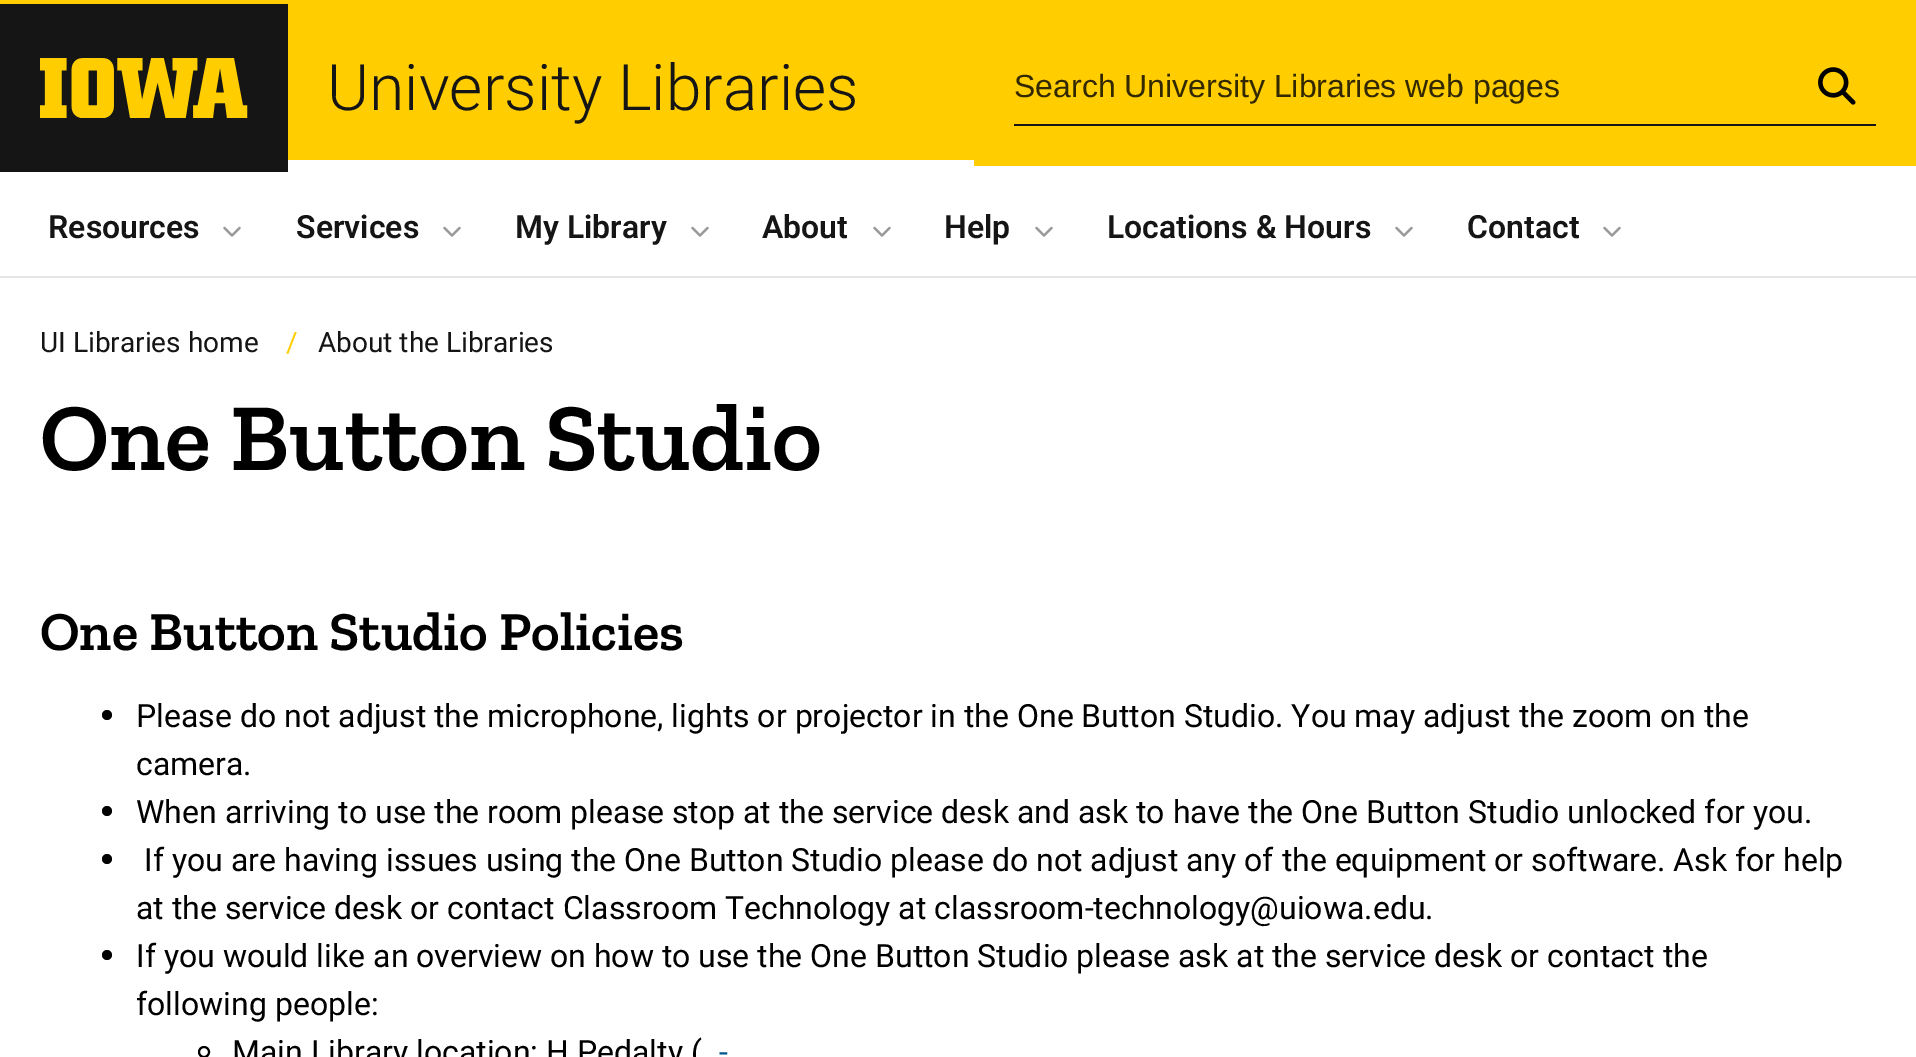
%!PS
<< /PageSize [1916 1057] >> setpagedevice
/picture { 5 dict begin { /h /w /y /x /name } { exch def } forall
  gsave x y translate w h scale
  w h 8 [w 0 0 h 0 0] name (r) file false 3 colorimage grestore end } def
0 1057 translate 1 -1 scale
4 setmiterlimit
1 setgray
0 0 1916 1057 rectfill
1 0.804 0 setrgbcolor
0 0 1916 160 rectfill
0.082 setgray
0 4 288 168 rectfill
(img1.rgb) 40 58 208 60 picture
/Roboto-Light [64 0 0 -64 0 0] selectfont
327 110 moveto (University Libraries) show
1 0.804 0 setrgbcolor
974 160 942 6 rectfill
0.082 setgray
1014 124 862 2 rectfill
/LiberationSans-Regular [32 0 0 -32 0 0] selectfont
0.2 0.161 0 setrgbcolor
1014 97 moveto (Search University Libraries web pages) show
(img2.rgb) 1818 67 38 38 picture
0.902 0.898 0.898 setrgbcolor
0 276 1916 2 rectfill
/Roboto-SemiBold [32 0 0 -32 0 0] selectfont
0.082 setgray
48 238 moveto (Resources) show
(img3.rgb) 223 226 18 11 picture
296 238 moveto (Services) show
(img3.rgb) 443 226 18 11 picture
515 238 moveto (My Library) show
(img3.rgb) 691 226 18 11 picture
762 238 moveto (About) show
(img3.rgb) 873 226 18 11 picture
944 238 moveto (Help) show
(img3.rgb) 1035 226 18 11 picture
1107 238 moveto (Locations & Hours) show
(img3.rgb) 1395 226 18 11 picture
1467 238 moveto (Contact) show
(img3.rgb) 1603 226 18 11 picture
/Roboto-Regular [28 0 0 -28 0 0] selectfont
40 352 moveto (UI Libraries home) show
1 0.804 0 setrgbcolor
286 352 moveto (/) show
0.082 setgray
318 352 moveto (About the Libraries) show
/ZillaSlab-SemiBold [96 0 0 -96 0 0] selectfont
0 setgray
40 470 moveto (One Button Studio) show
/ZillaSlab-SemiBold [55 0 0 -55 0 0] selectfont
40 650 moveto (One Button Studio Policies) show
newpath 107 715 5 0 360 arc closepath fill
/Roboto-Regular [32 0 0 -32 0 0] selectfont
136 727 moveto (Please do not adjust the microphone, lights or projector in the One Button Studio. You may adjust the zoom on the) show
136 775 moveto (camera.) show
newpath 107 811 5 0 360 arc closepath fill
136 823 moveto (When arriving to use the room please stop at the service desk and ask to have the One Button Studio unlocked for you.) show
newpath 107 859 5 0 360 arc closepath fill
144 871 moveto (If you are having issues using the One Button Studio please do not adjust any of the equipment or software. Ask for help) show
136 919 moveto (at the service desk or contact Classroom Technology at classroom-technology@uiowa.edu.) show
newpath 107 955 5 0 360 arc closepath fill
136 967 moveto (If you would like an overview on how to use the One Button Studio please ask at the service desk or contact the) show
136 1015 moveto (following people:) show
2 setlinewidth
newpath 204 1052 5 0 360 arc closepath stroke
232 1063 moveto (Main Library location: H Pedalty \() show
0 0.333 0.549 setrgbcolor
719 1063 moveto (-) show
showpage
